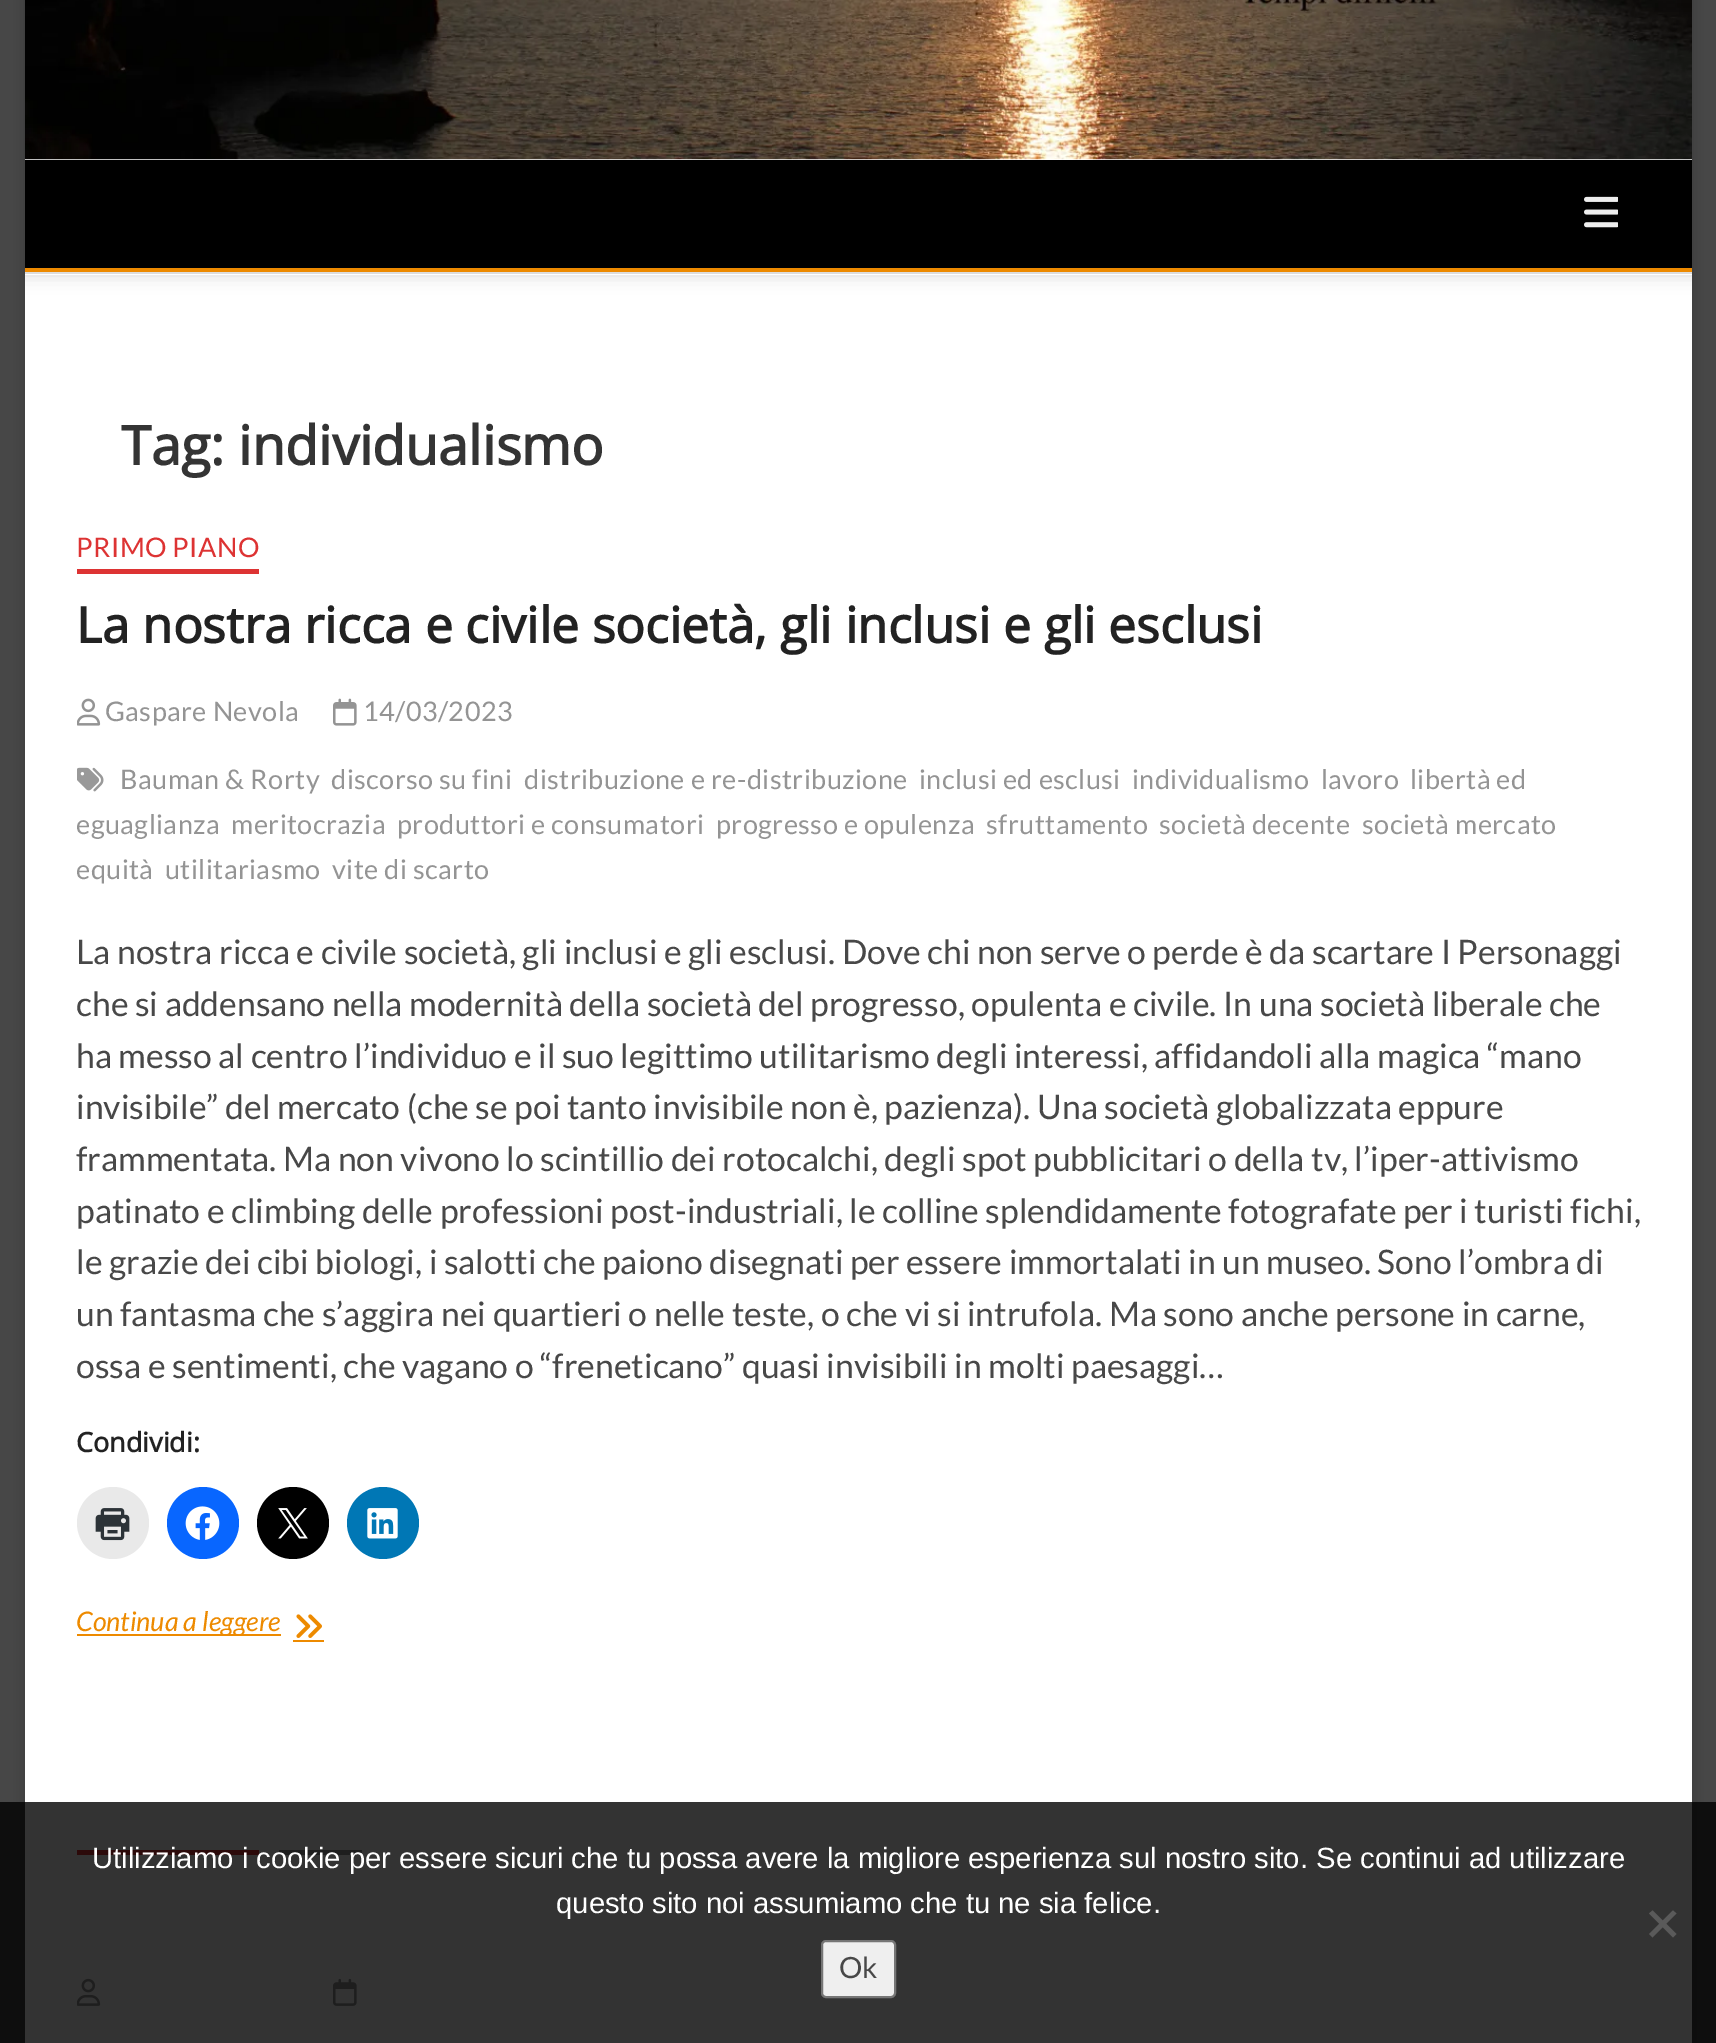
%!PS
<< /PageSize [1716 2043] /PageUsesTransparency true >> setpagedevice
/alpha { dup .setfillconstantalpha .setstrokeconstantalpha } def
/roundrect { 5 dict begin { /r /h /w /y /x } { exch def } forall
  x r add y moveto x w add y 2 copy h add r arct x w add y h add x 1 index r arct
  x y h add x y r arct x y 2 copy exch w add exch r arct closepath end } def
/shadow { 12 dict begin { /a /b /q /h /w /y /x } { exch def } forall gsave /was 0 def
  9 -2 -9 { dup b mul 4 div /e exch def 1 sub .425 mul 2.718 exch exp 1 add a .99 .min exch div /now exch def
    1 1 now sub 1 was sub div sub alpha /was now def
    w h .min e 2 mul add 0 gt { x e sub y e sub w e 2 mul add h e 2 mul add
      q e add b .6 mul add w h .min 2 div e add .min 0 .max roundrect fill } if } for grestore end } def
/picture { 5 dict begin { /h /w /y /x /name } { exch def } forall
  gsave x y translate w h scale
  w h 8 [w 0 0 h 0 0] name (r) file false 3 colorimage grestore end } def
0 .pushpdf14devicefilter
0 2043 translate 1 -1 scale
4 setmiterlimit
0.278 setgray
0 0 1716 2043 rectfill
0 setgray
25 -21 1667 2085 0 7 0.15 shadow
1 setgray
25 159 1667 1884 rectfill
(img1.rgb) 24 0 1668 160 picture
0 setgray
25 160 1667 108 rectfill
(img2.rgb) 1584 196 34 32 picture
gsave
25 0 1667 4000 rectclip
25 268 1667 7 0 9 0.15 shadow
grestore
1 setgray
25 274 1667 1 rectfill
0.929 0.541 0 setrgbcolor
25 268 1667 4 rectfill
0.867 setgray
25 272 1667 2 rectfill
/OpenSans-Bold [54 0 0 -54 0 0] selectfont
0.204 setgray
121 465 moveto (Tag: individualismo) show
/Lato-Regular [27 0 0 -27 0 0] selectfont
0.867 0.2 0.2 setrgbcolor
76 557 moveto 0.45 0 (PRIMO PIANO) ashow
77 569 182 5 rectfill
/OpenSans-Bold [49.5 0 0 -49.5 0 0] selectfont
0.133 setgray
76 643 moveto (La nostra ricca e civile società, gli inclusi e gli esclusi) show
(img3.rgb) 77 698 24 28 picture
/Lato-Regular [27 0 0 -27 0 0] selectfont
0.58 setgray
105 721 moveto 0.45 0 (Gaspare Nevola) ashow
(img4.rgb) 333 698 24 28 picture
363 721 moveto 0.45 0 (14/03/2023) ashow
(img5.rgb) 77 767 27 25 picture
120 789 moveto 0.45 0 (Bauman & Rorty) ashow
331 789 moveto 0.45 0 (discorso su fini) ashow
524 789 moveto 0.45 0 (distribuzione e re-distribuzione) ashow
919 789 moveto 0.45 0 (inclusi ed esclusi) ashow
1132 789 moveto 0.45 0 (individualismo) ashow
1321 789 moveto 0.45 0 (lavoro) ashow
1410 789 moveto 0.45 0 (libertà ed) ashow
gsave
77 691 1563 225 rectclip
76 834 moveto 0.45 0 (eguaglianza) ashow
grestore
231 834 moveto 0.45 0 (meritocrazia) ashow
397 834 moveto 0.45 0 (produttori e consumatori) ashow
716 834 moveto 0.45 0 (progresso e opulenza) ashow
986 834 moveto 0.45 0 (sfruttamento) ashow
1159 834 moveto 0.45 0 (società decente) ashow
1362 834 moveto 0.45 0 (società mercato) ashow
gsave
77 691 1563 225 rectclip
76 879 moveto 0.45 0 (equità) ashow
grestore
165 879 moveto 0.45 0 (utilitariasmo) ashow
332 879 moveto 0.45 0 (vite di scarto) ashow
/Lato-Regular [33.75 0 0 -33.75 0 0] selectfont
0.282 setgray
76 964 moveto (La nostra ricca e civile società, gli inclusi e gli esclusi. Dove chi non serve o perde è da scartare I Personaggi) show
76 1016 moveto (che si addensano nella modernità della società del progresso, opulenta e civile. In una società liberale che) show
76 1068 moveto (ha messo al centro l’individuo e il suo legittimo utilitarismo degli interessi, affidandoli alla magica “mano) show
76 1119 moveto (invisibile” del mercato \(che se poi tanto invisibile non è, pazienza\). Una società globalizzata eppure) show
76 1171 moveto (frammentata. Ma non vivono lo scintillio dei rotocalchi, degli spot pubblicitari o della tv, l’iper-attivismo) show
76 1223 moveto (patinato e climbing delle professioni post-industriali, le colline splendidamente fotografate per i turisti fichi,) show
76 1274 moveto (le grazie dei cibi biologi, i salotti che paiono disegnati per essere immortalati in un museo. Sono l’ombra di) show
76 1326 moveto (un fantasma che s’aggira nei quartieri o nelle teste, o che vi si intrufola. Ma sono anche persone in carne,) show
76 1378 moveto (ossa e sentimenti, che vagano o “freneticano” quasi invisibili in molti paesaggi…) show
/OpenSans-Bold [27 0 0 -27 0 0] selectfont
0.133 setgray
76 1452 moveto (Condividi:) show
0.914 setgray
newpath 113 1523 36 0 360 arc closepath fill
(img6.rgb) 95 1508 35 33 picture
0.031 0.4 1 setrgbcolor
newpath 203 1523 36 0 360 arc closepath fill
(img7.rgb) 185 1506 35 34 picture
0 setgray
newpath 293 1523 36 0 360 arc closepath fill
(img8.rgb) 278 1508 30 31 picture
0 0.467 0.71 setrgbcolor
newpath 383 1523 36 0 360 arc closepath fill
(img9.rgb) 367 1508 31 31 picture
0.929 0.541 0 setrgbcolor
77 1634 204 2 rectfill
/Lato-Italic [27 0 0 -27 0 0] selectfont
76 1631 moveto (Continua a leggere) show
(img10.rgb) 296 1614 26 24 picture
293 1640 31 2 rectfill
0.867 0.2 0.2 setrgbcolor
77 1850 182 5 rectfill
0.58 setgray
279 1850 83 5 rectfill
(img11.rgb) 77 1978 24 28 picture
(img12.rgb) 333 1978 24 28 picture
0.8 alpha
0 setgray
0 1802 1716 241 rectfill
/LiberationSans-Regular [29.25 0 0 -29.25 0 0] selectfont
1 alpha
1 setgray
92 1868 moveto (Utilizziamo i cookie per essere sicuri che tu possa avere la migliore esperienza sul nostro sito. Se continui ad utilizzare) show
556 1913 moveto (questo sito noi assumiamo che tu ne sia felice.) show
0.353 setgray
newpath 1673 1910.5 moveto 1676.5 1913.5 lineto 1652.5 1937.5 lineto 1649 1934 lineto closepath fill
newpath 1649 1913.5 moveto 1652.5 1910.5 lineto 1676.5 1934 lineto 1673 1937.5 lineto closepath fill
0.937 setgray
822 1941 73 56 4 roundrect gsave fill grestore
0.463 setgray
2 setlinewidth
stroke
/Lato-Regular [29.25 0 0 -29.25 0 0] selectfont
0.282 setgray
839 1978 moveto (Ok) show
.poppdf14devicefilter showpage
